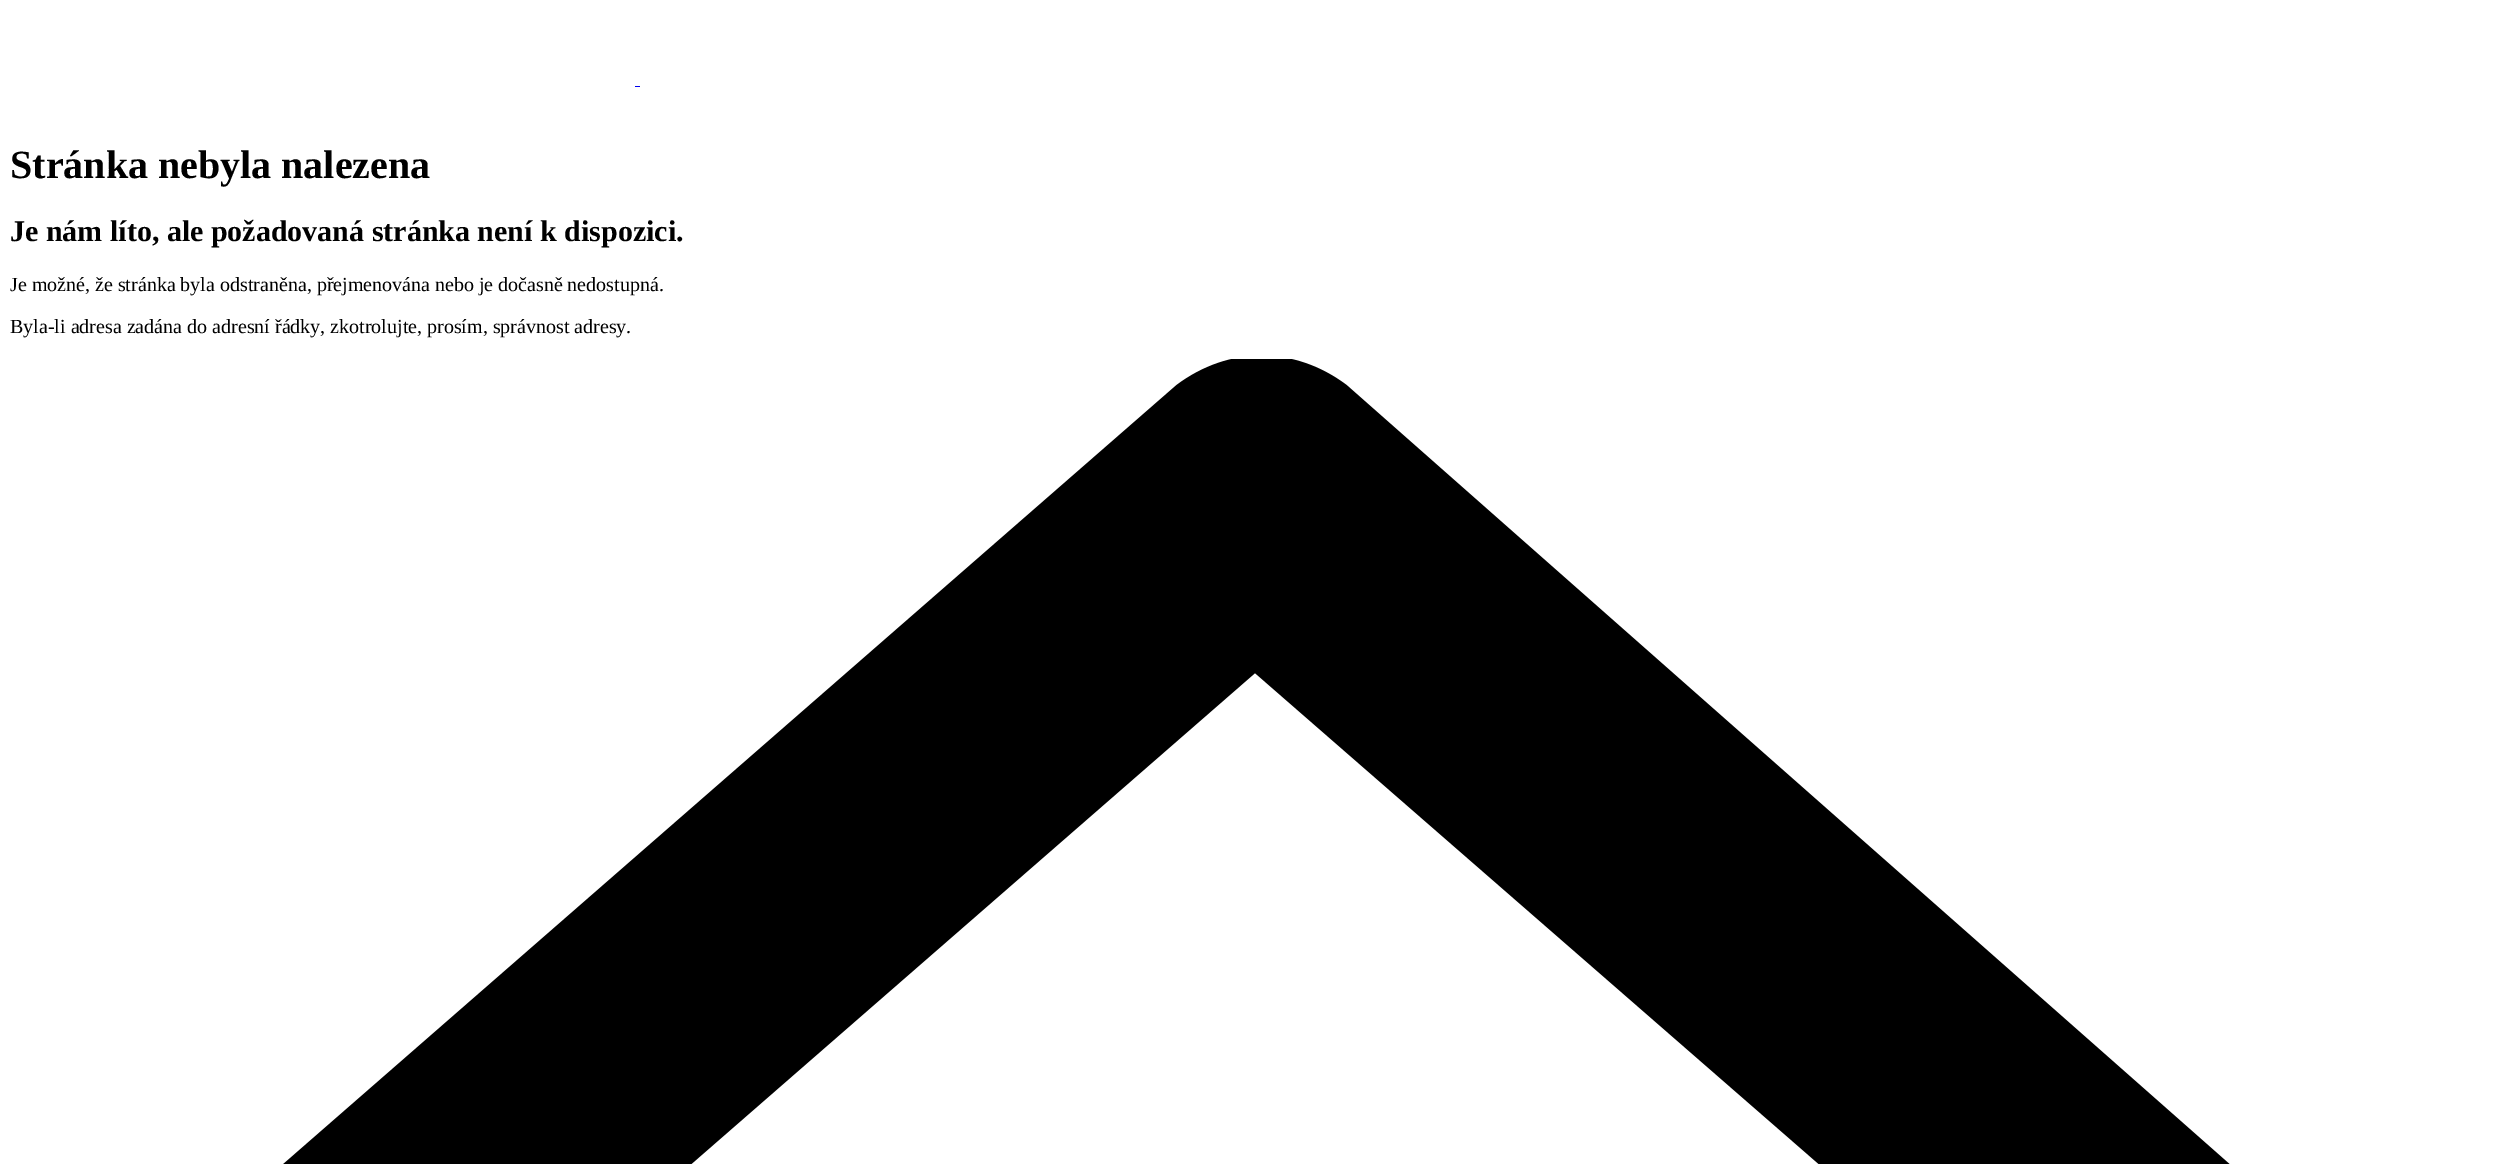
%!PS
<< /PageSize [2509 1164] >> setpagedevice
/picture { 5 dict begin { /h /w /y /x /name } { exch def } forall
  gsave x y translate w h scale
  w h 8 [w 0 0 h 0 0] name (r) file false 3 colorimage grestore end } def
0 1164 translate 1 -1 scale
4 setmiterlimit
1 setgray
0 0 2509 1164 rectfill
0 0 0.933 setrgbcolor
635 86 5 1 rectfill
/LiberationSerif-Bold [40 0 0 -40 0 0] selectfont
0 setgray
10 178 moveto (Stránka nebyla nalezena) show
/LiberationSerif-Bold [30 0 0 -30 0 0] selectfont
10 241 moveto (Je nám líto, ale požadovaná stránka není k dispozici.) show
/LiberationSerif-Regular [20 0 0 -20 0 0] selectfont
10 291 moveto (Je možné, že stránka byla odstraněna, přejmenována nebo je dočasně nedostupná.) show
10 333 moveto (Byla-li adresa zadána do adresní řádky, zkotrolujte, prosím, správnost adresy.) show
(img1.rgb) 283 359 1947 805 picture
showpage
